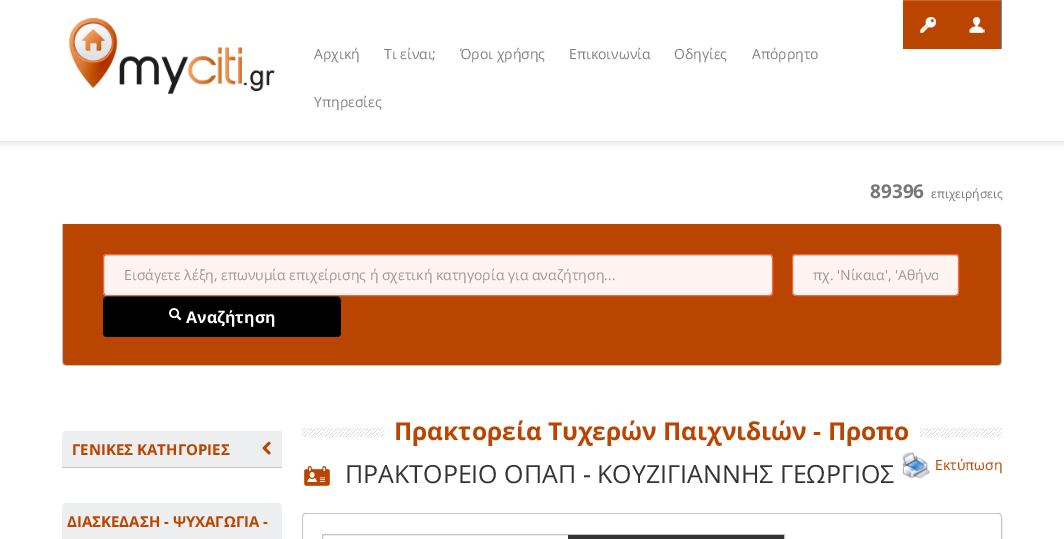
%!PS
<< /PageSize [1064 539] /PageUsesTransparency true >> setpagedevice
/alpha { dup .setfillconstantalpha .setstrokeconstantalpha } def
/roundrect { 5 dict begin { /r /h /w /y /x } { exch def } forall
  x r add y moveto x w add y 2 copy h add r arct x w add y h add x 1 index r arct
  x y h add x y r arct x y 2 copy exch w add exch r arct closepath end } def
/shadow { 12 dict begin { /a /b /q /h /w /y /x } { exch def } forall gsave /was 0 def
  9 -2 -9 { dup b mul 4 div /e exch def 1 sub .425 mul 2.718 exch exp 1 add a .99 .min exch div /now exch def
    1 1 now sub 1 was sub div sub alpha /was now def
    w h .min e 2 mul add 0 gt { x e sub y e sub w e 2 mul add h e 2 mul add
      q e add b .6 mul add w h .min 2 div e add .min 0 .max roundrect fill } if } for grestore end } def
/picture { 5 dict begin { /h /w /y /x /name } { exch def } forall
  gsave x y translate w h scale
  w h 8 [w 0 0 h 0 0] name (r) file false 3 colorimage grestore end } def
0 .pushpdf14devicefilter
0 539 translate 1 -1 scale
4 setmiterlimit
1 setgray
0 0 1064 539 rectfill
gsave
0 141 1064 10 rectclip
0.816 0.824 0.835 setrgbcolor
0 0 1064 141 0 5 1 shadow
grestore
(img1.rgb) 69 18 206 77 picture
/OpenSans-Regular [14 0 0 -14 0 0] selectfont
0.502 setgray
314 59 moveto (Αρχική) show
384 59 moveto (Τι είναι;) show
460 59 moveto (Όροι χρήσης) show
569 59 moveto (Επικοινωνία) show
674 59 moveto (Οδηγίες) show
752 59 moveto (Απόρρητο) show
314 107 moveto (Υπηρεσίες) show
0.388 0.584 0.871 setrgbcolor
1001 0 1 49 rectfill
0 setgray
903 1 49 49 0 1 0.05 shadow
0.729 0.271 0 setrgbcolor
903 1 49 48 rectfill
(img2.rgb) 920 17 16 16 picture
0.784 0.416 0.2 setrgbcolor
903 0 49 1 rectfill
0 setgray
952 1 49 49 0 1 0.05 shadow
0.729 0.271 0 setrgbcolor
952 1 49 48 rectfill
(img3.rgb) 969 17 16 16 picture
0.784 0.416 0.2 setrgbcolor
952 0 49 1 rectfill
/OpenSans-Bold [19 0 0 -19 0 0] selectfont
0.467 setgray
870 198 moveto (89396) show
/OpenSans-Regular [12 0 0 -12 0 0] selectfont
931 198 moveto (επιχειρήσεις) show
0.729 0.271 0 setrgbcolor
newpath 63 224 moveto 998 224 lineto 1000 224 1001 226 1001 228 curveto 1001 362 lineto 1001 364 1000 365 998 365 curveto 66 365 lineto 64 365 63 364 63 362 curveto closepath fill
0.765 0.773 0.788 setrgbcolor
newpath 62 224 moveto 998 224 lineto 1000 224 1002 226 1002 228 curveto 1002 362 lineto 1002 364 1000 366 998 366 curveto 66 366 lineto 64 366 62 364 62 362 curveto closepath 63 224 moveto 998 224 lineto 1000 224 1001 226 1001 228 curveto 1001 362 lineto 1001 364 1000 365 998 365 curveto 66 365 lineto 64 365 63 364 63 362 curveto closepath eofill
1 0.957 0.945 setrgbcolor
103 254 670 42 4 roundrect fill
0.925 0.886 0.875 setrgbcolor
newpath 107 256 moveto 769 256 lineto 771 256 772 257 772 259 curveto 772 258 lineto 772 256 771 255 769 255 curveto 107 255 lineto 105 255 104 256 104 258 curveto 104 259 lineto 104 257 105 256 107 256 curveto closepath fill
0.965 0.392 0.259 setrgbcolor
103.5 254.5 669 41 3.5 roundrect stroke
/OpenSans-Regular [14 0 0 -14 0 0] selectfont
0.6 setgray
124 280 moveto (Εισάγετε λέξη, επωνυμία επιχείρισης ή σχετική κατηγορία για αναζήτηση...) show
1 0.957 0.945 setrgbcolor
792 254 167 42 4 roundrect fill
0.925 0.886 0.875 setrgbcolor
newpath 796 256 moveto 955 256 lineto 957 256 958 257 958 259 curveto 958 257 957 255 955 255 curveto 796 255 lineto 794 255 793 257 793 259 curveto 793 257 794 256 796 256 curveto closepath fill
0.965 0.392 0.259 setrgbcolor
792.5 254.5 166 41 3.5 roundrect stroke
gsave
813 265 125 19 rectclip
0.6 setgray
813 280 moveto (πχ. 'Νίκαια', 'Αθήνα) show
grestore
0 setgray
103 296 238 41 4 roundrect fill
0.2 alpha
1 setgray
newpath 107 297 moveto 337 297 lineto 339 297 341 299 341 301 curveto 341 298 340 296 337 296 curveto 107 296 lineto 104 296 103 298 103 301 curveto 103 299 105 297 107 297 curveto closepath fill
1 alpha
(img4.rgb) 169 308 13 13 picture
/OpenSans-Bold [16 0 0 -16 0 0] selectfont
186 323 moveto (Αναζήτηση) show
0.929 0.933 0.937 setrgbcolor
newpath 66 431 moveto 282 431 lineto 282 468 lineto 62 468 lineto 62 435 lineto 62 433 64 431 66 431 curveto closepath fill
0.765 0.773 0.788 setrgbcolor
62 467 220 1 rectfill
/OpenSans-Bold [15 0 0 -15 0 0] selectfont
0.729 0.271 0 setrgbcolor
72 455 moveto (ΓΕΝΙΚΕΣ ΚΑΤΗΓΟΡΙΕΣ) show
(img5.rgb) 262 441 9 14 picture
0.929 0.933 0.937 setrgbcolor
newpath 66 503 moveto 278 503 lineto 280 503 282 505 282 507 curveto 282 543 lineto 62 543 lineto 62 507 lineto 62 505 64 503 66 503 curveto closepath fill
0.729 0.271 0 setrgbcolor
67 527 moveto (ΔΙΑΣΚΕΔΑΣΗ - ΨΥΧΑΓΩΓΙΑ -) show
(img6.rgb) 302 428 700 9 picture
1 setgray
384 428 536 9 rectfill
/OpenSans-Bold [24.5 0 0 -24.5 0 0] selectfont
0.729 0.271 0 setrgbcolor
394 440 moveto (Πρακτορεία Τυχερών Παιχνιδιών - Προπο) show
(img7.rgb) 304 466 26 20 picture
/OpenSans-Regular [25 0 0 -25 0 0] selectfont
0.2 setgray
345 483 moveto (ΠΡΑΚΤΟΡΕΙΟ ΟΠΑΠ - ΚΟΥΖΙΓΙΑΝΝΗΣ ΓΕΩΡΓΙΟΣ) show
(img8.rgb) 902 452 28 27 picture
/OpenSans-Regular [14 0 0 -14 0 0] selectfont
0.729 0.271 0 setrgbcolor
935 470 moveto (Εκτύπωση) show
0.765 0.773 0.788 setrgbcolor
302.5 513.5 699 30 3.5 roundrect stroke
1 setgray
newpath 307 514 moveto 997 514 lineto 999 514 1001 516 1001 518 curveto 1001 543 lineto 303 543 lineto 303 518 lineto 303 516 305 514 307 514 curveto closepath fill
0.765 0.773 0.788 setrgbcolor
322.5 534.5 462 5 rectstroke
0.2 setgray
568 535 216 4 rectfill
.poppdf14devicefilter showpage
